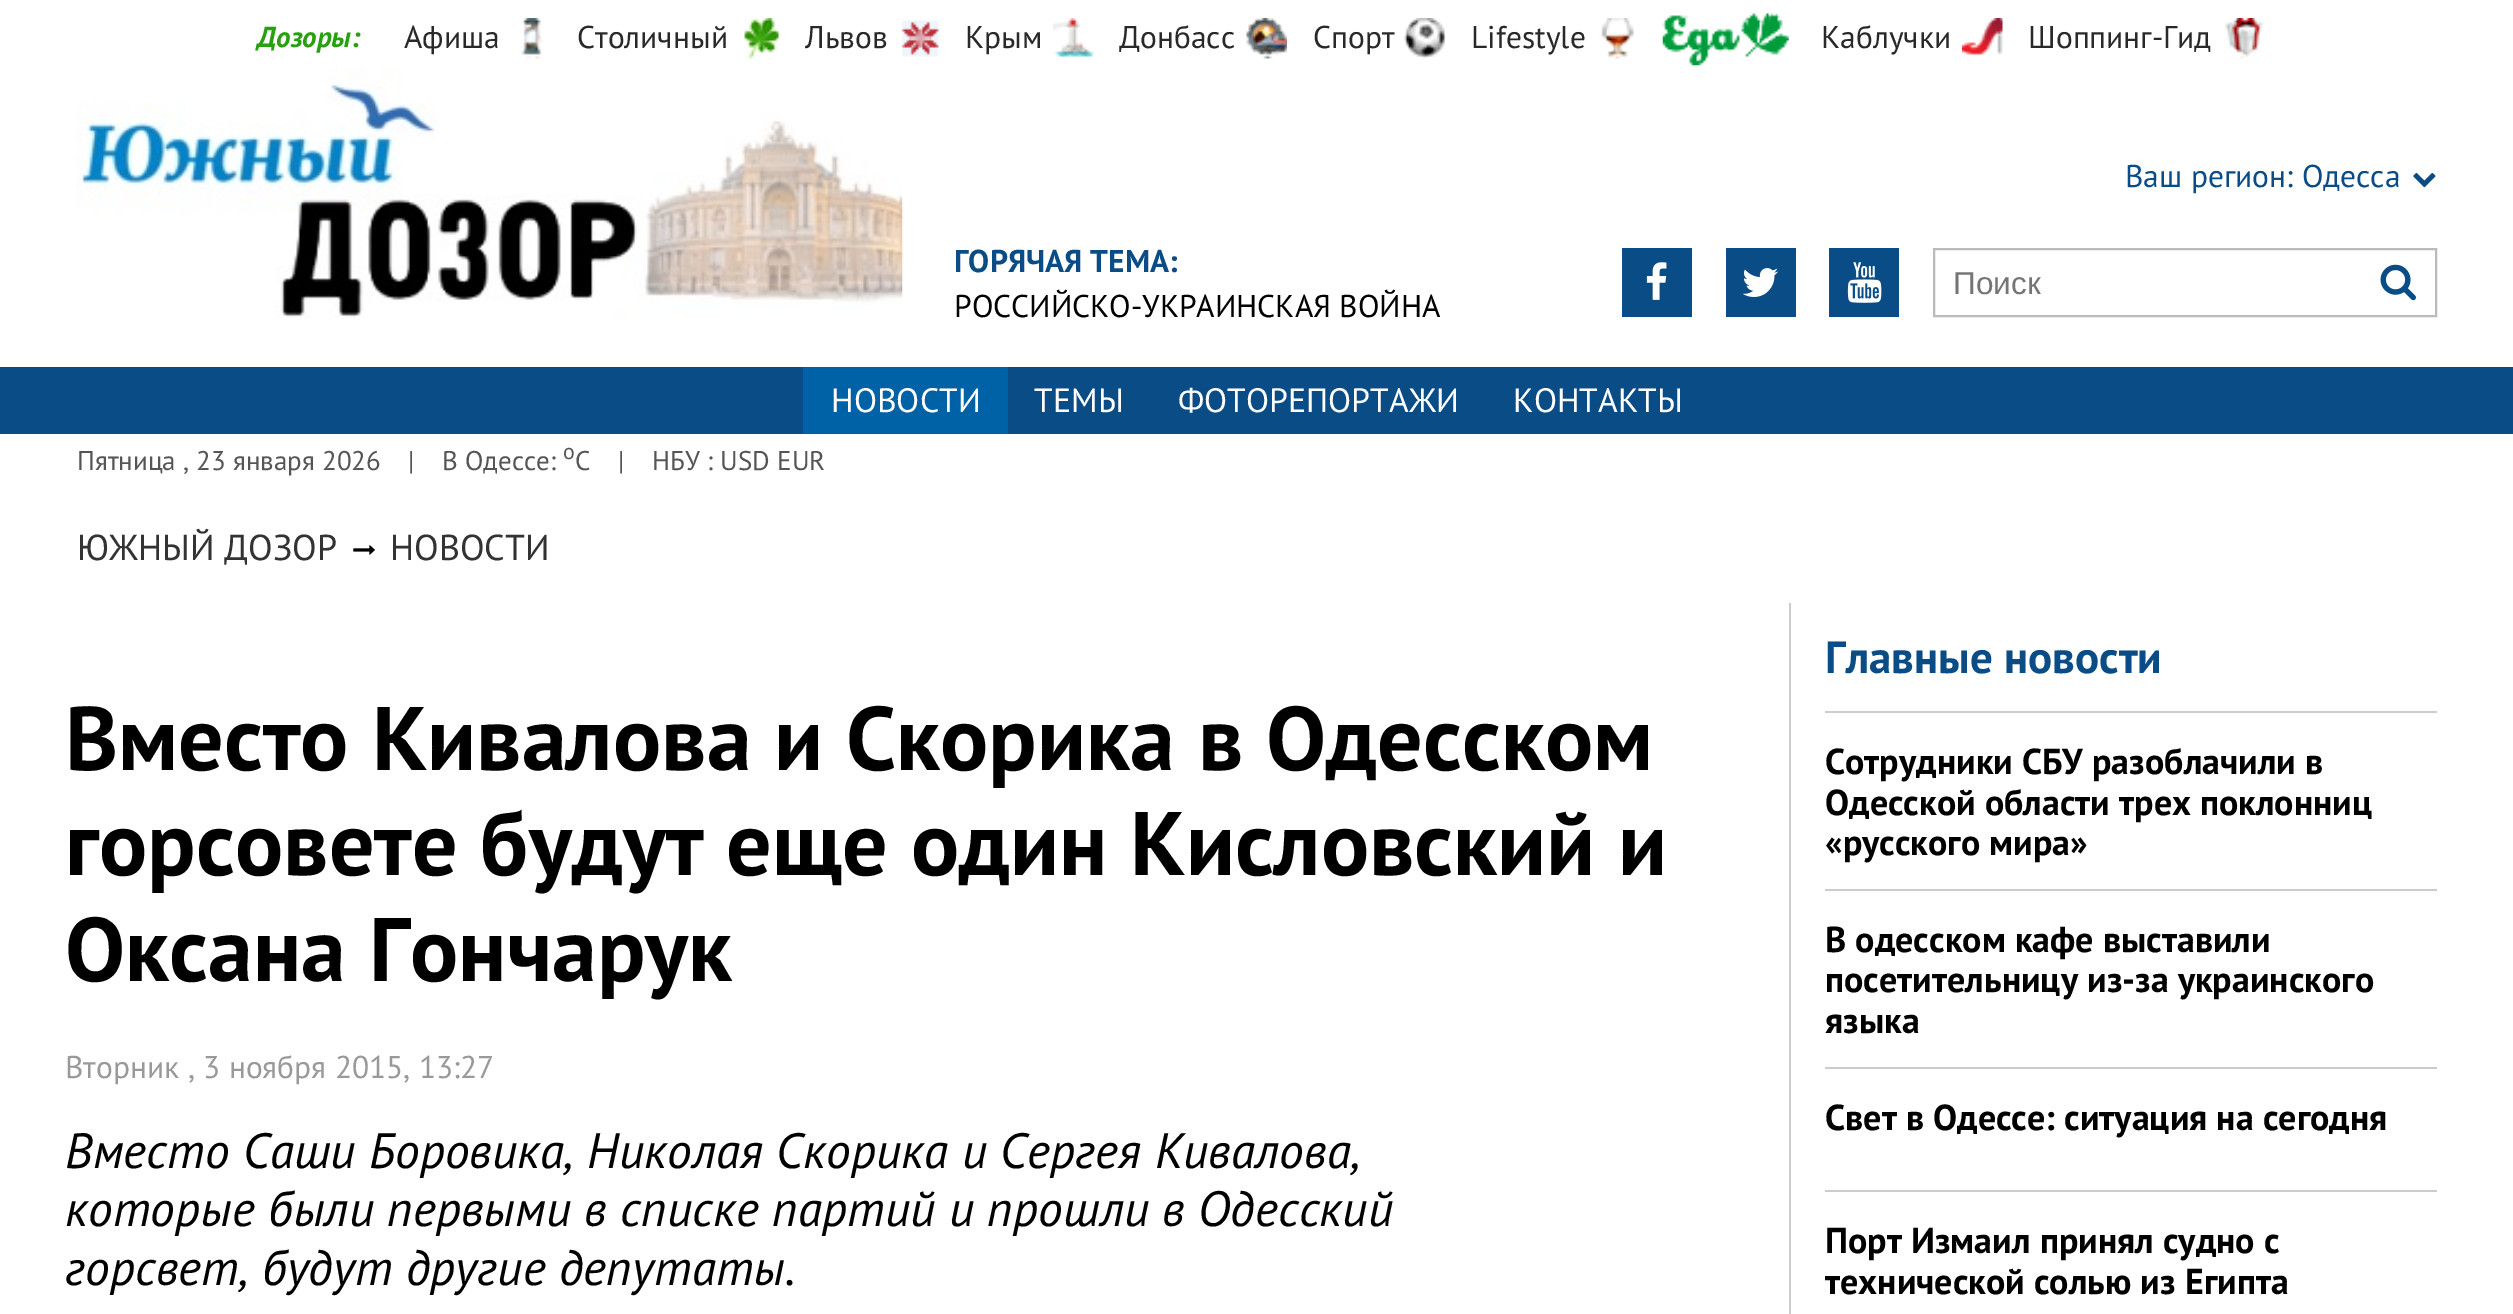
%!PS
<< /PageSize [2513 1314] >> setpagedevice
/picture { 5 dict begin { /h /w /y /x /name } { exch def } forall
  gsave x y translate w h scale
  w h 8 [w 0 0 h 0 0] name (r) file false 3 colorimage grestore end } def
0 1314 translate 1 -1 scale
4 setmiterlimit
1 setgray
0 0 2513 1314 rectfill
/PTSans-BoldItalic [29 0 0 -29 0 0] selectfont
0.157 0.627 0.063 setrgbcolor
257 47 moveto (Дозоры:) show
/PTSans-Regular [31.5 0 0 -31.5 0 0] selectfont
0.161 setgray
404 48 moveto (Афиша) show
(img1.rgb) 521 18 22 41 picture
577 48 moveto (Столичный) show
(img2.rgb) 744 18 36 41 picture
805 48 moveto (Львов) show
(img3.rgb) 901 20 38 37 picture
965 48 moveto (Крым) show
(img4.rgb) 1053 18 41 39 picture
1119 48 moveto (Донбасс) show
(img5.rgb) 1246 18 41 41 picture
1313 48 moveto (Спорт) show
(img6.rgb) 1404 18 41 41 picture
1471 48 moveto (Lifestyle) show
(img7.rgb) 1601 18 33 41 picture
(img8.rgb) 1662 13 127 53 picture
1821 48 moveto (Каблучки) show
(img9.rgb) 1962 18 41 37 picture
2028 48 moveto (Шоппинг-Гид) show
(img10.rgb) 2225 18 39 41 picture
(img11.rgb) 76 67 827 252 picture
/PTSans-Bold [31.5 0 0 -31.5 0 0] selectfont
0.039 0.298 0.522 setrgbcolor
954 272 moveto (ГОРЯЧАЯ ТЕМА:) show
/PTSans-Regular [31.5 0 0 -31.5 0 0] selectfont
0 setgray
954 317 moveto (РОССИЙСКО-УКРАИНСКАЯ ВОЙНА) show
0.039 0.298 0.522 setrgbcolor
2125 187 moveto (Ваш регион: Одесса) show
(img12.rgb) 2413 172 23 16 picture
1622 248 70 69 rectfill
(img13.rgb) 1646 262 21 38 picture
1726 248 70 69 rectfill
(img14.rgb) 1742 268 36 29 picture
1829 248 70 69 rectfill
(img15.rgb) 1847 262 35 41 picture
0.733 setgray
2 setlinewidth
1934 249 502 67 rectstroke
/LiberationSans-Regular [31.5 0 0 -31.5 0 0] selectfont
0.459 setgray
1953 294 moveto (Поиск) show
(img16.rgb) 2380 264 36 37 picture
0.039 0.298 0.522 setrgbcolor
0 367 2513 67 rectfill
0 0.384 0.651 setrgbcolor
803 367 205 67 rectfill
/PTSans-Regular [33.75 0 0 -33.75 0 0] selectfont
1 setgray
831 412 moveto (НОВОСТИ) show
1034 412 moveto (ТЕМЫ) show
1178 412 moveto (ФОТОРЕПОРТАЖИ) show
1513 412 moveto (КОНТАКТЫ) show
/PTSans-Regular [27 0 0 -27 0 0] selectfont
0.333 setgray
77 470 moveto (Пятница , 23 января 2026) show
408 470 moveto (|) show
442 470 moveto (В Одессе:) show
/PTSans-Regular [22 0 0 -22 0 0] selectfont
563 459 moveto (о) show
/PTSans-Regular [27 0 0 -27 0 0] selectfont
575 470 moveto (С) show
618 470 moveto (|) show
652 470 moveto (НБУ : USD EUR) show
/PTSans-Regular [36 0 0 -36 0 0] selectfont
0.2 setgray
77 560 moveto (ЮЖНЫЙ ДОЗОР) show
(img17.rgb) 353 545 22 10 picture
390 560 moveto (НОВОСТИ) show
0.8 setgray
1789 603 2 711 rectfill
/PTSans-Bold [90 0 0 -90 0 0] selectfont
0 setgray
65 770 moveto (Вместо Кивалова и Скорика в Одесском) show
65 875 moveto (горсовете будут еще один Кисловский и) show
65 981 moveto (Оксана Гончарук) show
/PTSans-Regular [31.5 0 0 -31.5 0 0] selectfont
0.6 setgray
65 1078 moveto (Вторник , 3 ноября 2015, 13:27) show
/PTSans-Italic [49.5 0 0 -49.5 0 0] selectfont
0 setgray
65 1168 moveto (Вместо Саши Боровика, Николая Скорика и Сергея Кивалова,) show
65 1226 moveto (которые были первыми в списке партий и прошли в Одесский) show
65 1285 moveto (горсвет, будут другие депутаты.) show
/PTSans-Bold [45 0 0 -45 0 0] selectfont
0.039 0.298 0.522 setrgbcolor
1825 673 moveto (Главные новости) show
0.8 setgray
1825 711 612 2 rectfill
/PTSans-Bold [36 0 0 -36 0 0] selectfont
0 setgray
1825 774 moveto (Сотрудники СБУ разоблачили в) show
1825 815 moveto (Одесской области трех поклонниц) show
1825 855 moveto («русского мира») show
0.8 setgray
1825 889 612 2 rectfill
0 setgray
1825 952 moveto (В одесском кафе выставили) show
1825 992 moveto (посетительницу из-за украинского) show
1825 1033 moveto (языка) show
0.8 setgray
1825 1067 612 2 rectfill
0 setgray
1825 1130 moveto (Свет в Одессе: ситуация на сегодня) show
0.8 setgray
1825 1190 612 2 rectfill
0 setgray
1825 1253 moveto (Порт Измаил принял судно с) show
1825 1294 moveto (технической солью из Египта) show
showpage
